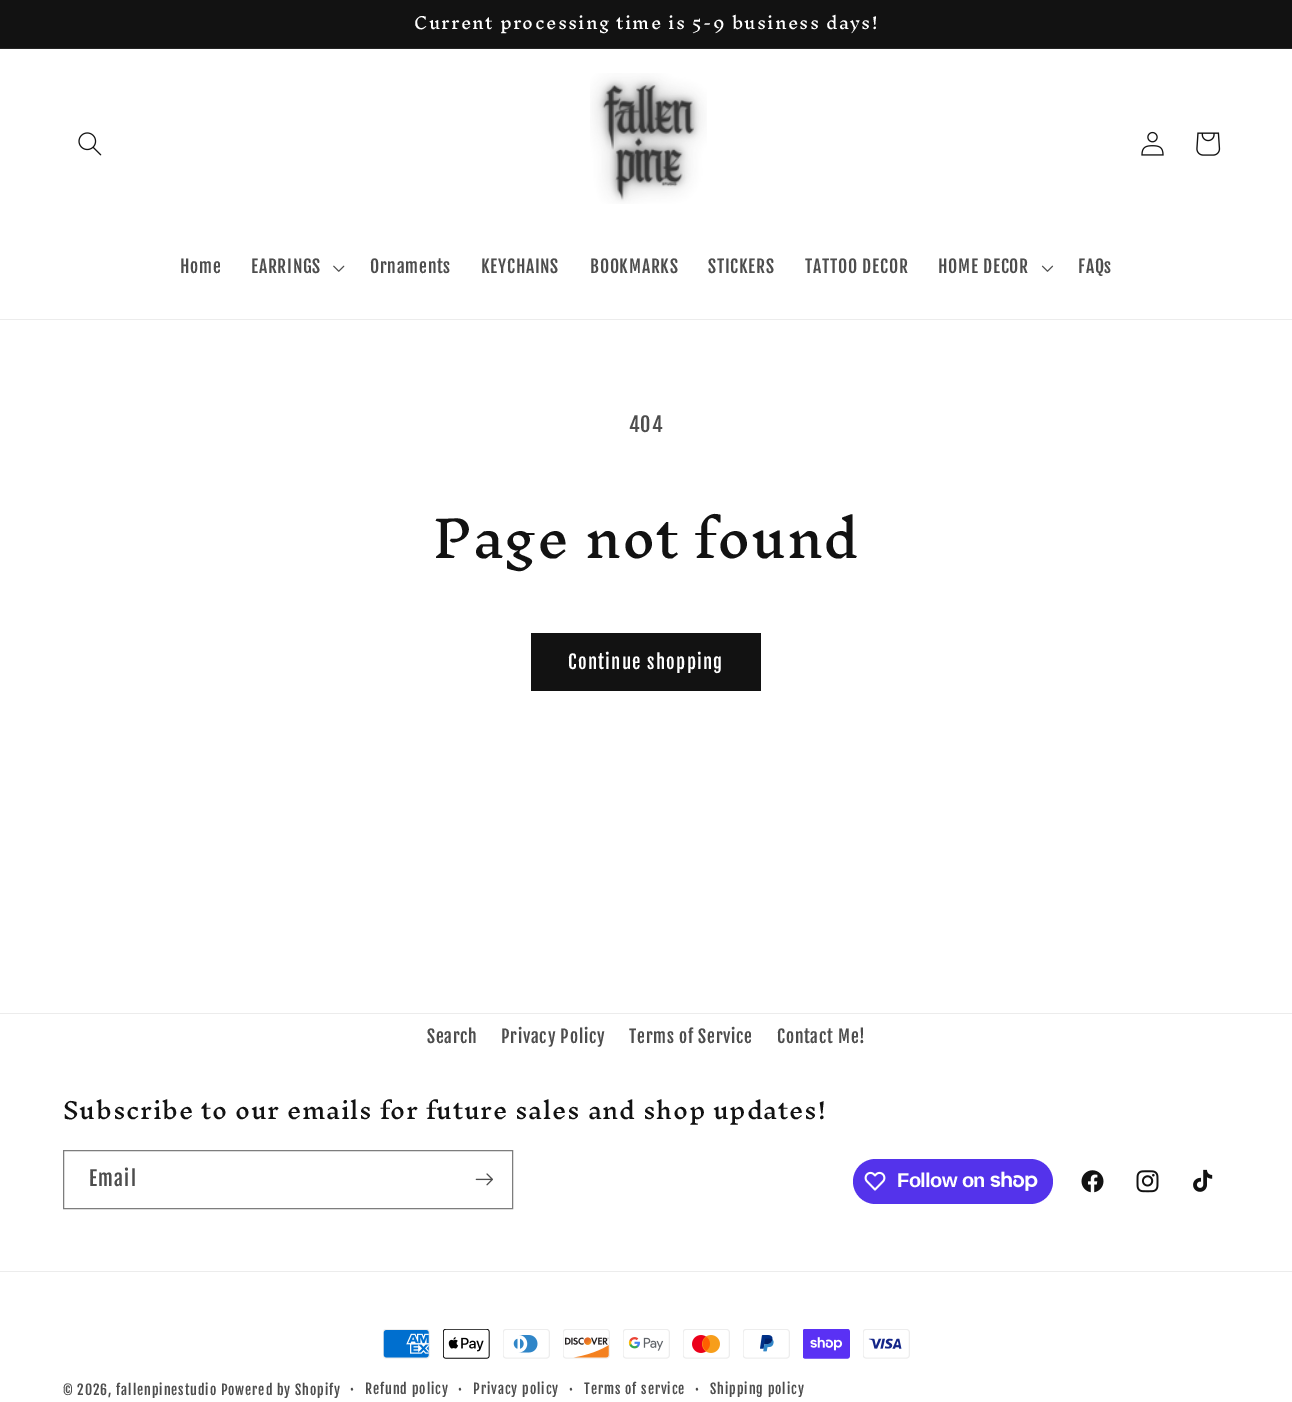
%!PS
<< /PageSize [1292 1402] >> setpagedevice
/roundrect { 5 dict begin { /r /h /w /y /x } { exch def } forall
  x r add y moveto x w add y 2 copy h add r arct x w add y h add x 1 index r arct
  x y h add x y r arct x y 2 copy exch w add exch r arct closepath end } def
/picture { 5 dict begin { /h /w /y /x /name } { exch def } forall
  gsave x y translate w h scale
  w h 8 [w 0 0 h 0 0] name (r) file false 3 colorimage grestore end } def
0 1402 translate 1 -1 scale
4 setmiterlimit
1 setgray
0 0 1292 1402 rectfill
0.071 setgray
0 0 1292 48 rectfill
0.145 setgray
0 48 1292 1 rectfill
/InknutAntiqua-Regular [16.25 0 0 -16.25 0 0] selectfont
1 setgray
414 29 moveto 1.25 0 (Current processing time is 5-9 business days!) ashow
0.925 setgray
0 319 1292 1 rectfill
(img1.rgb) 78 132 24 24 picture
(img2.rgb) 590 73 117 131 picture
(img3.rgb) 1141 131 23 25 picture
(img4.rgb) 1196 132 25 24 picture
/FjallaOne-Regular [17.5 0 0 -17.5 0 0] selectfont
0.302 setgray
180 273 moveto 0.75 0 (Home) ashow
251 273 moveto 0.75 0 (EARRINGS) ashow
(img5.rgb) 333 265 12 7 picture
370 273 moveto 0.75 0 (Ornaments) ashow
481 273 moveto 0.75 0 (KEYCHAINS) ashow
590 273 moveto 0.75 0 (BOOKMARKS) ashow
708 273 moveto 0.75 0 (STICKERS) ashow
805 273 moveto 0.75 0 (TATTOO DECOR) ashow
938 273 moveto 0.75 0 (HOME DECOR) ashow
(img6.rgb) 1041 265 13 7 picture
1078 273 moveto 0.75 0 (FAQs) ashow
/FjallaOne-Regular [20 0 0 -20 0 0] selectfont
629 432 moveto 0.75 0 (404) ashow
/InknutAntiqua-Regular [50 0 0 -50 0 0] selectfont
0.071 setgray
433 558 moveto 0.75 0 (Page not found) ashow
531 633 230 58 rectfill
/FjallaOne-Regular [18.75 0 0 -18.75 0 0] selectfont
1 setgray
568 669 moveto 1.25 0 (Continue shopping) ashow
0.925 setgray
0 1013 1292 1 rectfill
/FjallaOne-Regular [17.5 0 0 -17.5 0 0] selectfont
0.302 setgray
427 1043 moveto 0.75 0 (Search) ashow
501 1043 moveto 0.75 0 (Privacy Policy) ashow
629 1043 moveto 0.75 0 (Terms of Service) ashow
777 1043 moveto 0.75 0 (Contact Me!) ashow
/InknutAntiqua-Regular [22.5 0 0 -22.5 0 0] selectfont
0.071 setgray
63 1119 moveto 0.75 0 (Subscribe to our emails for future sales and shop updates!) ashow
0.49 setgray
63.5 1150.5 449 58 rectstroke
/FjallaOne-Regular [20 0 0 -20 0 0] selectfont
0.302 setgray
89 1186 moveto 1.25 0 (Email) ashow
(img7.rgb) 475 1173 18 13 picture
0.329 0.2 0.922 setrgbcolor
853 1159 200 45 22.5 roundrect fill
(img8.rgb) 864 1171 22 20 picture
/LiberationSans-Bold [20 0 0 -20 0 0] selectfont
1 setgray
897 1187 moveto -0.6 0 (Follow on) ashow
(img9.rgb) 990 1171 48 20 picture
(img10.rgb) 1081 1170 23 23 picture
(img11.rgb) 1136 1170 23 23 picture
(img12.rgb) 1193 1169 20 23 picture
0.925 setgray
0 1271 1292 1 rectfill
(img13.rgb) 383 1329 47 30 picture
(img14.rgb) 443 1329 47 30 picture
(img15.rgb) 503 1329 47 30 picture
(img16.rgb) 563 1329 47 30 picture
(img17.rgb) 623 1329 47 30 picture
(img18.rgb) 683 1329 47 30 picture
(img19.rgb) 743 1329 47 30 picture
(img20.rgb) 803 1329 47 30 picture
(img21.rgb) 863 1329 47 30 picture
/FjallaOne-Regular [13.75 0 0 -13.75 0 0] selectfont
0.302 setgray
63 1395 moveto 0.9 0 (© 2026, fallenpinestudio Powered by Shopify) ashow
/FjallaOne-Regular [15 0 0 -15 0 0] selectfont
350 1395 moveto 0.9 0 (·) ashow
/FjallaOne-Regular [13.75 0 0 -13.75 0 0] selectfont
365 1394 moveto 0.9 0 (Refund policy) ashow
/FjallaOne-Regular [15 0 0 -15 0 0] selectfont
458 1395 moveto 0.9 0 (·) ashow
/FjallaOne-Regular [13.75 0 0 -13.75 0 0] selectfont
473 1394 moveto 0.9 0 (Privacy policy) ashow
/FjallaOne-Regular [15 0 0 -15 0 0] selectfont
569 1395 moveto 0.9 0 (·) ashow
/FjallaOne-Regular [13.75 0 0 -13.75 0 0] selectfont
584 1394 moveto 0.9 0 (Terms of service) ashow
/FjallaOne-Regular [15 0 0 -15 0 0] selectfont
695 1395 moveto 0.9 0 (·) ashow
/FjallaOne-Regular [13.75 0 0 -13.75 0 0] selectfont
710 1394 moveto 0.9 0 (Shipping policy) ashow
showpage
